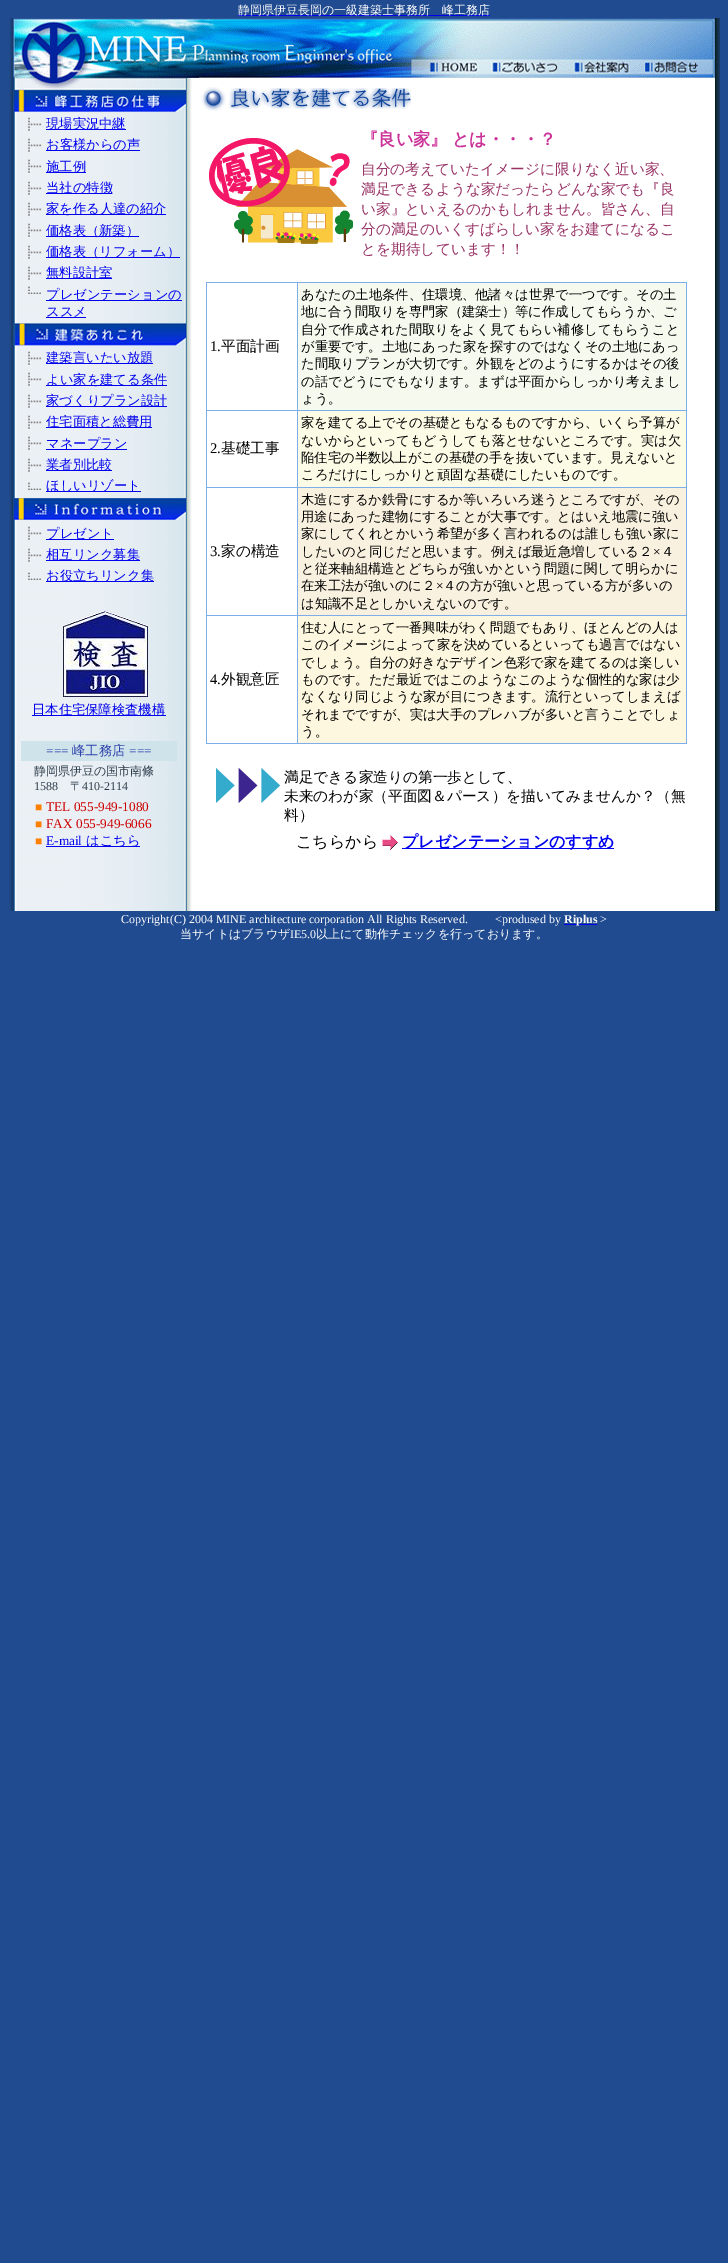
%!PS
<< /PageSize [728 2263] >> setpagedevice
/picture { 5 dict begin { /h /w /y /x /name } { exch def } forall
  gsave x y translate w h scale
  w h 8 [w 0 0 h 0 0] name (r) file false 3 colorimage grestore end } def
0 2263 translate 1 -1 scale
4 setmiterlimit
0.129 0.294 0.569 setrgbcolor
0 0 728 2263 rectfill
0 0 0.933 setrgbcolor
238 15 252 1 rectfill
/WenQuanYiZenHei-Medium [12 0 0 -12 0 0] selectfont
1 setgray
238 14 moveto (静岡県伊豆長岡の一級建築士事務所　峰工務店) show
(img1.rgb) 9 18 4 893 picture
(img2.rgb) 13 18 702 60 picture
(img3.rgb) 715 18 5 893 picture
(img4.rgb) 13 78 185 833 picture
(img5.rgb) 14 78 172 12 picture
(img6.rgb) 13 90 173 22 picture
(img7.rgb) 28 117 14 14 picture
0 0 0.933 setrgbcolor
46 129 80 1 rectfill
/WenQuanYiZenHei-Medium [13.3 0 0 -13.3 0 0] selectfont
46 128 moveto (現場実況中継) show
(img7.rgb) 28 138 14 14 picture
46 150 94 1 rectfill
46 149 moveto (お客様からの声) show
(img7.rgb) 28 159 14 14 picture
46 172 40 1 rectfill
46 171 moveto (施工例) show
(img8.rgb) 28 181 14 14 picture
46 193 66 1 rectfill
46 192 moveto (当社の特徴) show
(img8.rgb) 28 202 14 14 picture
46 214 120 1 rectfill
46 213 moveto (家を作る人達の紹介) show
(img8.rgb) 28 223 14 14 picture
46 236 93 1 rectfill
46 235 moveto (価格表（新築）) show
(img9.rgb) 28 245 14 14 picture
46 257 134 1 rectfill
46 256 moveto (価格表（リフォーム）) show
(img9.rgb) 28 266 14 14 picture
46 278 66 1 rectfill
46 277 moveto (無料設計室) show
(img10.rgb) 28 286 13 8 picture
46 300 136 1 rectfill
46 299 moveto (プレゼンテーションの) show
46 316 moveto (ススメ) show
46 317 40 1 rectfill
(img11.rgb) 13 323 173 23 picture
(img7.rgb) 28 351 14 14 picture
46 363 107 1 rectfill
46 362 moveto (建築言いたい放題) show
(img7.rgb) 28 372 14 14 picture
46 385 121 1 rectfill
46 384 moveto (よい家を建てる条件) show
(img8.rgb) 28 394 14 14 picture
46 406 121 1 rectfill
46 405 moveto (家づくりプラン設計) show
(img8.rgb) 28 415 14 14 picture
46 427 106 1 rectfill
46 426 moveto (住宅面積と総費用) show
(img8.rgb) 28 436 14 14 picture
46 449 81 1 rectfill
46 448 moveto (マネープラン) show
(img9.rgb) 28 458 14 14 picture
46 470 66 1 rectfill
46 469 moveto (業者別比較) show
(img12.rgb) 28 482 13 8 picture
46 491 95 1 rectfill
46 490 moveto (ほしいリゾート) show
(img13.rgb) 13 498 173 22 picture
(img8.rgb) 28 526 14 14 picture
46 539 68 1 rectfill
46 538 moveto (プレゼント) show
(img9.rgb) 28 548 14 14 picture
46 560 94 1 rectfill
46 559 moveto (相互リンク募集) show
(img12.rgb) 28 572 13 8 picture
46 581 108 1 rectfill
46 580 moveto (お役立ちリンク集) show
(img14.rgb) 63 611 85 86 picture
32 715 134 1 rectfill
32 714 moveto (日本住宅保障検査機構) show
0.808 0.89 0.918 setrgbcolor
21 741 156 20 rectfill
/LiberationSerif-Regular [13.3 0 0 -13.3 0 0] selectfont
0.188 0.263 0.678 setrgbcolor
46 755 moveto (===) show
/WenQuanYiZenHei-Medium [13.3 0 0 -13.3 0 0] selectfont
72 755 moveto (峰工務店) show
/LiberationSerif-Regular [13.3 0 0 -13.3 0 0] selectfont
129 755 moveto (===) show
/WenQuanYiZenHei-Medium [12 0 0 -12 0 0] selectfont
0.176 0.235 0.29 setrgbcolor
34 775 moveto (静岡県伊豆の国市南條) show
/LiberationSerif-Regular [12 0 0 -12 0 0] selectfont
34 790 moveto (1588) show
/WenQuanYiZenHei-Medium [12 0 0 -12 0 0] selectfont
70 790 moveto (〒) show
/LiberationSerif-Regular [12 0 0 -12 0 0] selectfont
82 790 moveto (410-2114) show
1 0.502 0 setrgbcolor
35 811 moveto (■) show
/LiberationSerif-Regular [13.3 0 0 -13.3 0 0] selectfont
0.8 0 0 setrgbcolor
46 811 moveto (TEL 055-949-1080) show
/LiberationSerif-Regular [12 0 0 -12 0 0] selectfont
1 0.502 0 setrgbcolor
35 828 moveto (■) show
/LiberationSerif-Regular [13.3 0 0 -13.3 0 0] selectfont
0.8 0 0 setrgbcolor
46 828 moveto (FAX 055-949-6066) show
/LiberationSerif-Regular [12 0 0 -12 0 0] selectfont
1 0.502 0 setrgbcolor
35 845 moveto (■) show
/LiberationSerif-Regular [13.3 0 0 -13.3 0 0] selectfont
0 0 0.933 setrgbcolor
46 845 moveto (E-mail) show
46 846 94 1 rectfill
/WenQuanYiZenHei-Medium [13.3 0 0 -13.3 0 0] selectfont
86 845 moveto (はこちら) show
1 setgray
198 78 517 833 rectfill
(img15.rgb) 201 87 210 24 picture
(img16.rgb) 209 138 144 106 picture
/WenQuanYiZenHei-Bold [17.25 0 0 -17.25 0 0] selectfont
0.8 0.2 0.6 setrgbcolor
361 145 moveto -1 0 32 (『良い家』 とは・・・？) widthshow
/WenQuanYiZenHei-Medium [14.7 0 0 -14.7 0 0] selectfont
0.6 0.2 0.4 setrgbcolor
361 174 moveto (自分の考えていたイメージに限りなく近い家、) show
361 194 moveto (満足できるような家だったらどんな家でも『良) show
361 214 moveto (い家』といえるのかもしれません。皆さん、自) show
361 234 moveto (分の満足のいくすばらしい家をお建てになるこ) show
361 254 moveto (とを期待しています！！) show
0.49 0.682 0.918 setrgbcolor
206 282 481 462 rectfill
1 setgray
207 283 90 127 rectfill
/LiberationSerif-Regular [14.7 0 0 -14.7 0 0] selectfont
0 setgray
210 351 moveto (1.) show
/WenQuanYiZenHei-Medium [14.7 0 0 -14.7 0 0] selectfont
221 351 moveto (平面計画) show
0.961 0.976 0.933 setrgbcolor
298 283 388 127 rectfill
/WenQuanYiZenHei-Medium [13.3 0 0 -13.3 0 0] selectfont
0 setgray
301 299 moveto (あなたの土地条件、住環境、他諸々は世界で一つです。その土) show
301 316 moveto (地に合う間取りを専門家（建築士）等に作成してもらうか、ご) show
301 334 moveto (自分で作成された間取りをよく見てもらい補修してもらうこと) show
301 351 moveto (が重要です。土地にあった家を探すのではなくその土地にあっ) show
301 368 moveto (た間取りプランが大切です。外観をどのようにするかはその後) show
301 386 moveto (の話でどうにでもなります。まずは平面からしっかり考えまし) show
301 403 moveto (ょう。) show
1 setgray
207 411 90 76 rectfill
/LiberationSerif-Regular [14.7 0 0 -14.7 0 0] selectfont
0 setgray
210 453 moveto (2.) show
/WenQuanYiZenHei-Medium [14.7 0 0 -14.7 0 0] selectfont
221 453 moveto (基礎工事) show
0.984 0.984 0.902 setrgbcolor
298 411 388 76 rectfill
/WenQuanYiZenHei-Medium [13.3 0 0 -13.3 0 0] selectfont
0 setgray
301 427 moveto (家を建てる上でその基礎ともなるものですから、いくら予算が) show
301 445 moveto (ないからといってもどうしても落とせないところです。実は欠) show
301 462 moveto (陥住宅の半数以上がこの基礎の手を抜いています。見えないと) show
301 479 moveto (ころだけにしっかりと頑固な基礎にしたいものです。) show
1 setgray
207 488 90 127 rectfill
/LiberationSerif-Regular [14.7 0 0 -14.7 0 0] selectfont
0 setgray
210 556 moveto (3.) show
/WenQuanYiZenHei-Medium [14.7 0 0 -14.7 0 0] selectfont
221 556 moveto (家の構造) show
0.976 0.945 0.875 setrgbcolor
298 488 388 127 rectfill
/WenQuanYiZenHei-Medium [13.3 0 0 -13.3 0 0] selectfont
0 setgray
301 504 moveto (木造にするか鉄骨にするか等いろいろ迷うところですが、その) show
301 521 moveto (用途にあった建物にすることが大事です。とはいえ地震に強い) show
301 538 moveto (家にしてくれとかいう希望が多く言われるのは誰しも強い家に) show
301 556 moveto (したいのと同じだと思います。例えば最近急増している２) show
/LiberationSerif-Regular [13.3 0 0 -13.3 0 0] selectfont
653 556 moveto (×) show
/WenQuanYiZenHei-Medium [13.3 0 0 -13.3 0 0] selectfont
661 556 moveto (４) show
301 573 moveto (と従来軸組構造とどちらが強いかという問題に関して明らかに) show
301 590 moveto (在来工法が強いのに２) show
/LiberationSerif-Regular [13.3 0 0 -13.3 0 0] selectfont
436 590 moveto (×) show
/WenQuanYiZenHei-Medium [13.3 0 0 -13.3 0 0] selectfont
443 590 moveto (４の方が強いと思っている方が多いの) show
301 608 moveto (は知識不足としかいえないのです。) show
1 setgray
207 616 90 127 rectfill
/LiberationSerif-Regular [14.7 0 0 -14.7 0 0] selectfont
0 setgray
210 684 moveto (4.) show
/WenQuanYiZenHei-Medium [14.7 0 0 -14.7 0 0] selectfont
221 684 moveto (外観意匠) show
0.992 0.969 0.875 setrgbcolor
298 616 388 127 rectfill
/WenQuanYiZenHei-Medium [13.3 0 0 -13.3 0 0] selectfont
0 setgray
301 632 moveto (住む人にとって一番興味がわく問題でもあり、ほとんどの人は) show
301 649 moveto (このイメージによって家を決めているといっても過言ではない) show
301 667 moveto (でしょう。自分の好きなデザイン色彩で家を建てるのは楽しい) show
301 684 moveto (ものです。ただ最近ではこのようなこのような個性的な家は少) show
301 701 moveto (なくなり同じような家が目につきます。流行といってしまえば) show
301 719 moveto (それまでですが、実は大手のプレハブが多いと言うことでしょ) show
301 736 moveto (う。) show
(img17.rgb) 216 768 64 35 picture
/WenQuanYiZenHei-Medium [14.7 0 0 -14.7 0 0] selectfont
284 782 moveto (満足できる家造りの第一歩として、) show
284 801 moveto (未来のわが家（平面図＆パース）を描いてみませんか？（無) show
284 820 moveto (料）) show
/WenQuanYiZenHei-Medium [16 0 0 -16 0 0] selectfont
296 847 moveto (こちらから) show
(img18.rgb) 382 835 16 15 picture
0 0 0.933 setrgbcolor
402 848 212 1 rectfill
/WenQuanYiZenHei-Bold [16 0 0 -16 0 0] selectfont
402 847 moveto (プレゼンテーションのすすめ) show
/LiberationSerif-Regular [12 0 0 -12 0 0] selectfont
1 setgray
121 923 moveto (Copyright\(C\) 2004 MINE architecture corporation All Rights Reserved.) show
495 923 moveto (<prodused by) show
0 0 0.933 setrgbcolor
564 924 33 1 rectfill
/LiberationSerif-Bold [12 0 0 -12 0 0] selectfont
1 setgray
564 923 moveto (Riplus) show
/LiberationSerif-Regular [12 0 0 -12 0 0] selectfont
600 923 moveto (>) show
/WenQuanYiZenHei-Medium [12 0 0 -12 0 0] selectfont
180 938 moveto (当サイトはブラウザ) show
/LiberationSerif-Regular [12 0 0 -12 0 0] selectfont
290 938 moveto (IE5.0) show
/WenQuanYiZenHei-Medium [12 0 0 -12 0 0] selectfont
316 938 moveto (以上にて動作チェックを行っております。) show
showpage
